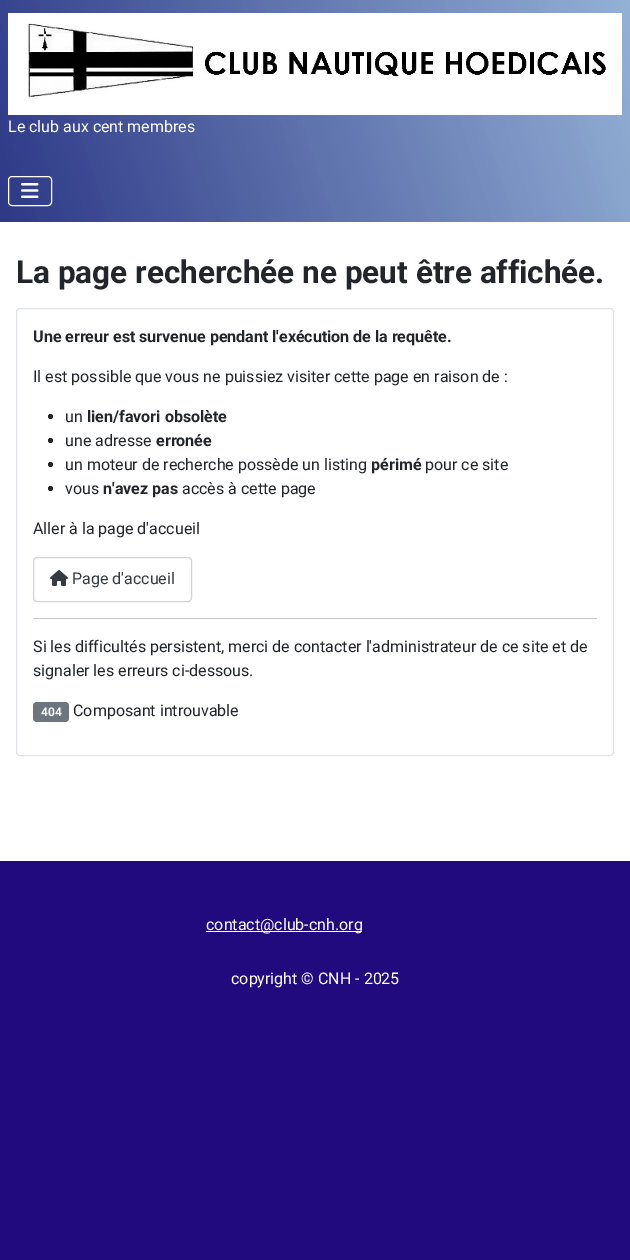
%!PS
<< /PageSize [630 1260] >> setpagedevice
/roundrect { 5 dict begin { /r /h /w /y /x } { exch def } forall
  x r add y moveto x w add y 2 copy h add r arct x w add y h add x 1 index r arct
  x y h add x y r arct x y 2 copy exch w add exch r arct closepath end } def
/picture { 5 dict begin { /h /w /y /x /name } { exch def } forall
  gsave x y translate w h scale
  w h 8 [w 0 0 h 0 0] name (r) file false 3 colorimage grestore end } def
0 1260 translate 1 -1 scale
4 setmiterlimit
1 setgray
0 0 630 1260 rectfill
gsave newpath 0 0 moveto 630 0 lineto 630 222 lineto 0 222 lineto closepath clip newpath
<< /ShadingType 2 /ColorSpace /DeviceRGB /Coords [-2.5 214 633 7.8] /Extend [true true] /Function << /FunctionType 3 /Domain [0 1] /Functions [<< /FunctionType 2 /Domain [0 1] /C0 [0.18 0.224 0.529] /C1 [0.192 0.235 0.537] /N 1 >> << /FunctionType 2 /Domain [0 1] /C0 [0.192 0.235 0.537] /C1 [0.204 0.251 0.549] /N 1 >> << /FunctionType 2 /Domain [0 1] /C0 [0.204 0.251 0.549] /C1 [0.216 0.267 0.557] /N 1 >> << /FunctionType 2 /Domain [0 1] /C0 [0.216 0.267 0.557] /C1 [0.231 0.282 0.569] /N 1 >> << /FunctionType 2 /Domain [0 1] /C0 [0.231 0.282 0.569] /C1 [0.243 0.298 0.576] /N 1 >> << /FunctionType 2 /Domain [0 1] /C0 [0.243 0.298 0.576] /C1 [0.255 0.314 0.588] /N 1 >> << /FunctionType 2 /Domain [0 1] /C0 [0.255 0.314 0.588] /C1 [0.271 0.329 0.596] /N 1 >> << /FunctionType 2 /Domain [0 1] /C0 [0.271 0.329 0.596] /C1 [0.282 0.341 0.608] /N 1 >> << /FunctionType 2 /Domain [0 1] /C0 [0.282 0.341 0.608] /C1 [0.294 0.357 0.616] /N 1 >> << /FunctionType 2 /Domain [0 1] /C0 [0.294 0.357 0.616] /C1 [0.306 0.373 0.627] /N 1 >> << /FunctionType 2 /Domain [0 1] /C0 [0.306 0.373 0.627] /C1 [0.322 0.388 0.639] /N 1 >> << /FunctionType 2 /Domain [0 1] /C0 [0.322 0.388 0.639] /C1 [0.333 0.404 0.647] /N 1 >> << /FunctionType 2 /Domain [0 1] /C0 [0.333 0.404 0.647] /C1 [0.345 0.42 0.659] /N 1 >> << /FunctionType 2 /Domain [0 1] /C0 [0.345 0.42 0.659] /C1 [0.361 0.435 0.667] /N 1 >> << /FunctionType 2 /Domain [0 1] /C0 [0.361 0.435 0.667] /C1 [0.373 0.451 0.678] /N 1 >> << /FunctionType 2 /Domain [0 1] /C0 [0.373 0.451 0.678] /C1 [0.384 0.463 0.686] /N 1 >> << /FunctionType 2 /Domain [0 1] /C0 [0.384 0.463 0.686] /C1 [0.396 0.478 0.698] /N 1 >> << /FunctionType 2 /Domain [0 1] /C0 [0.396 0.478 0.698] /C1 [0.412 0.494 0.706] /N 1 >> << /FunctionType 2 /Domain [0 1] /C0 [0.412 0.494 0.706] /C1 [0.424 0.51 0.718] /N 1 >> << /FunctionType 2 /Domain [0 1] /C0 [0.424 0.51 0.718] /C1 [0.435 0.525 0.725] /N 1 >> << /FunctionType 2 /Domain [0 1] /C0 [0.435 0.525 0.725] /C1 [0.451 0.541 0.737] /N 1 >> << /FunctionType 2 /Domain [0 1] /C0 [0.451 0.541 0.737] /C1 [0.463 0.557 0.749] /N 1 >> << /FunctionType 2 /Domain [0 1] /C0 [0.463 0.557 0.749] /C1 [0.475 0.573 0.757] /N 1 >> << /FunctionType 2 /Domain [0 1] /C0 [0.475 0.573 0.757] /C1 [0.486 0.584 0.769] /N 1 >> << /FunctionType 2 /Domain [0 1] /C0 [0.486 0.584 0.769] /C1 [0.502 0.6 0.776] /N 1 >> << /FunctionType 2 /Domain [0 1] /C0 [0.502 0.6 0.776] /C1 [0.514 0.616 0.788] /N 1 >> << /FunctionType 2 /Domain [0 1] /C0 [0.514 0.616 0.788] /C1 [0.525 0.631 0.796] /N 1 >> << /FunctionType 2 /Domain [0 1] /C0 [0.525 0.631 0.796] /C1 [0.541 0.647 0.808] /N 1 >> << /FunctionType 2 /Domain [0 1] /C0 [0.541 0.647 0.808] /C1 [0.553 0.663 0.816] /N 1 >> << /FunctionType 2 /Domain [0 1] /C0 [0.553 0.663 0.816] /C1 [0.565 0.678 0.827] /N 1 >> << /FunctionType 2 /Domain [0 1] /C0 [0.565 0.678 0.827] /C1 [0.58 0.694 0.839] /N 1 >>] /Bounds [0.03 0.06 0.1 0.13 0.16 0.19 0.23 0.26 0.29 0.32 0.35 0.39 0.42 0.45 0.48 0.52 0.55 0.58 0.61 0.65 0.68 0.71 0.74 0.77 0.81 0.84 0.87 0.9 0.94 0.97] /Encode [0 1 0 1 0 1 0 1 0 1 0 1 0 1 0 1 0 1 0 1 0 1 0 1 0 1 0 1 0 1 0 1 0 1 0 1 0 1 0 1 0 1 0 1 0 1 0 1 0 1 0 1 0 1 0 1 0 1 0 1 0 1] >> >> shfill grestore
(img1.rgb) 8 13 614 102 picture
/Roboto-Regular [16 0 0 -16 0 0] selectfont
8 132 moveto (Le club aux cent membres) show
8.5 176.5 43 29 3.5 roundrect stroke
(img2.rgb) 21 183 18 15 picture
/Roboto-Bold [31.5 0 0 -31.5 0 0] selectfont
0.133 0.149 0.165 setrgbcolor
16 283 moveto (La page recherchée ne peut être affichée.) show
0.875 0.89 0.906 setrgbcolor
16.5 308.5 597 447 3.5 roundrect stroke
/Roboto-Bold [16 0 0 -16 0 0] selectfont
0.133 0.149 0.165 setrgbcolor
33 342 moveto (Une erreur est survenue pendant l'exécution de la requête.) show
/Roboto-Regular [16 0 0 -16 0 0] selectfont
33 382 moveto (Il est possible que vous ne puissiez visiter cette page en raison de :) show
newpath 50.5 416.5 2.5 0 360 arc closepath fill
65 422 moveto (un) show
/Roboto-Bold [16 0 0 -16 0 0] selectfont
87 422 moveto (lien/favori obsolète) show
newpath 50.5 440.5 2.5 0 360 arc closepath fill
/Roboto-Regular [16 0 0 -16 0 0] selectfont
65 446 moveto (une adresse) show
/Roboto-Bold [16 0 0 -16 0 0] selectfont
156 446 moveto (erronée) show
newpath 50.5 464.5 2.5 0 360 arc closepath fill
/Roboto-Regular [16 0 0 -16 0 0] selectfont
65 470 moveto (un moteur de recherche possède un listing) show
/Roboto-Bold [16 0 0 -16 0 0] selectfont
371 470 moveto (périmé) show
/Roboto-Regular [16 0 0 -16 0 0] selectfont
425 470 moveto (pour ce site) show
newpath 50.5 488.5 2.5 0 360 arc closepath fill
65 494 moveto (vous) show
/Roboto-Bold [16 0 0 -16 0 0] selectfont
103 494 moveto (n'avez pas) show
/Roboto-Regular [16 0 0 -16 0 0] selectfont
182 494 moveto (accès à cette page) show
33 534 moveto (Aller à la page d'accueil) show
0.808 0.831 0.855 setrgbcolor
33.5 557.5 158 44 3.5 roundrect stroke
(img3.rgb) 50 570 18 16 picture
0.208 0.231 0.255 setrgbcolor
72 584 moveto (Page d'accueil) show
0.784 0.788 0.792 setrgbcolor
33 618 564 1 rectfill
0.133 0.149 0.165 setrgbcolor
33 652 moveto (Si les difficultés persistent, merci de contacter l'administrateur de ce site et de) show
33 676 moveto (signaler les erreurs ci-dessous.) show
0.427 0.459 0.494 setrgbcolor
33 702 36 20 4 roundrect fill
/Roboto-Bold [12 0 0 -12 0 0] selectfont
1 setgray
41 716 moveto (404) show
/Roboto-Regular [16 0 0 -16 0 0] selectfont
0.133 0.149 0.165 setrgbcolor
73 716 moveto (Composant introuvable) show
0.125 0.039 0.49 setrgbcolor
0 861 630 399 rectfill
1 setgray
206 931 156 1 rectfill
206 930 moveto (contact@club-cnh.org) show
231 984 moveto (copyright © CNH - 2025) show
showpage
